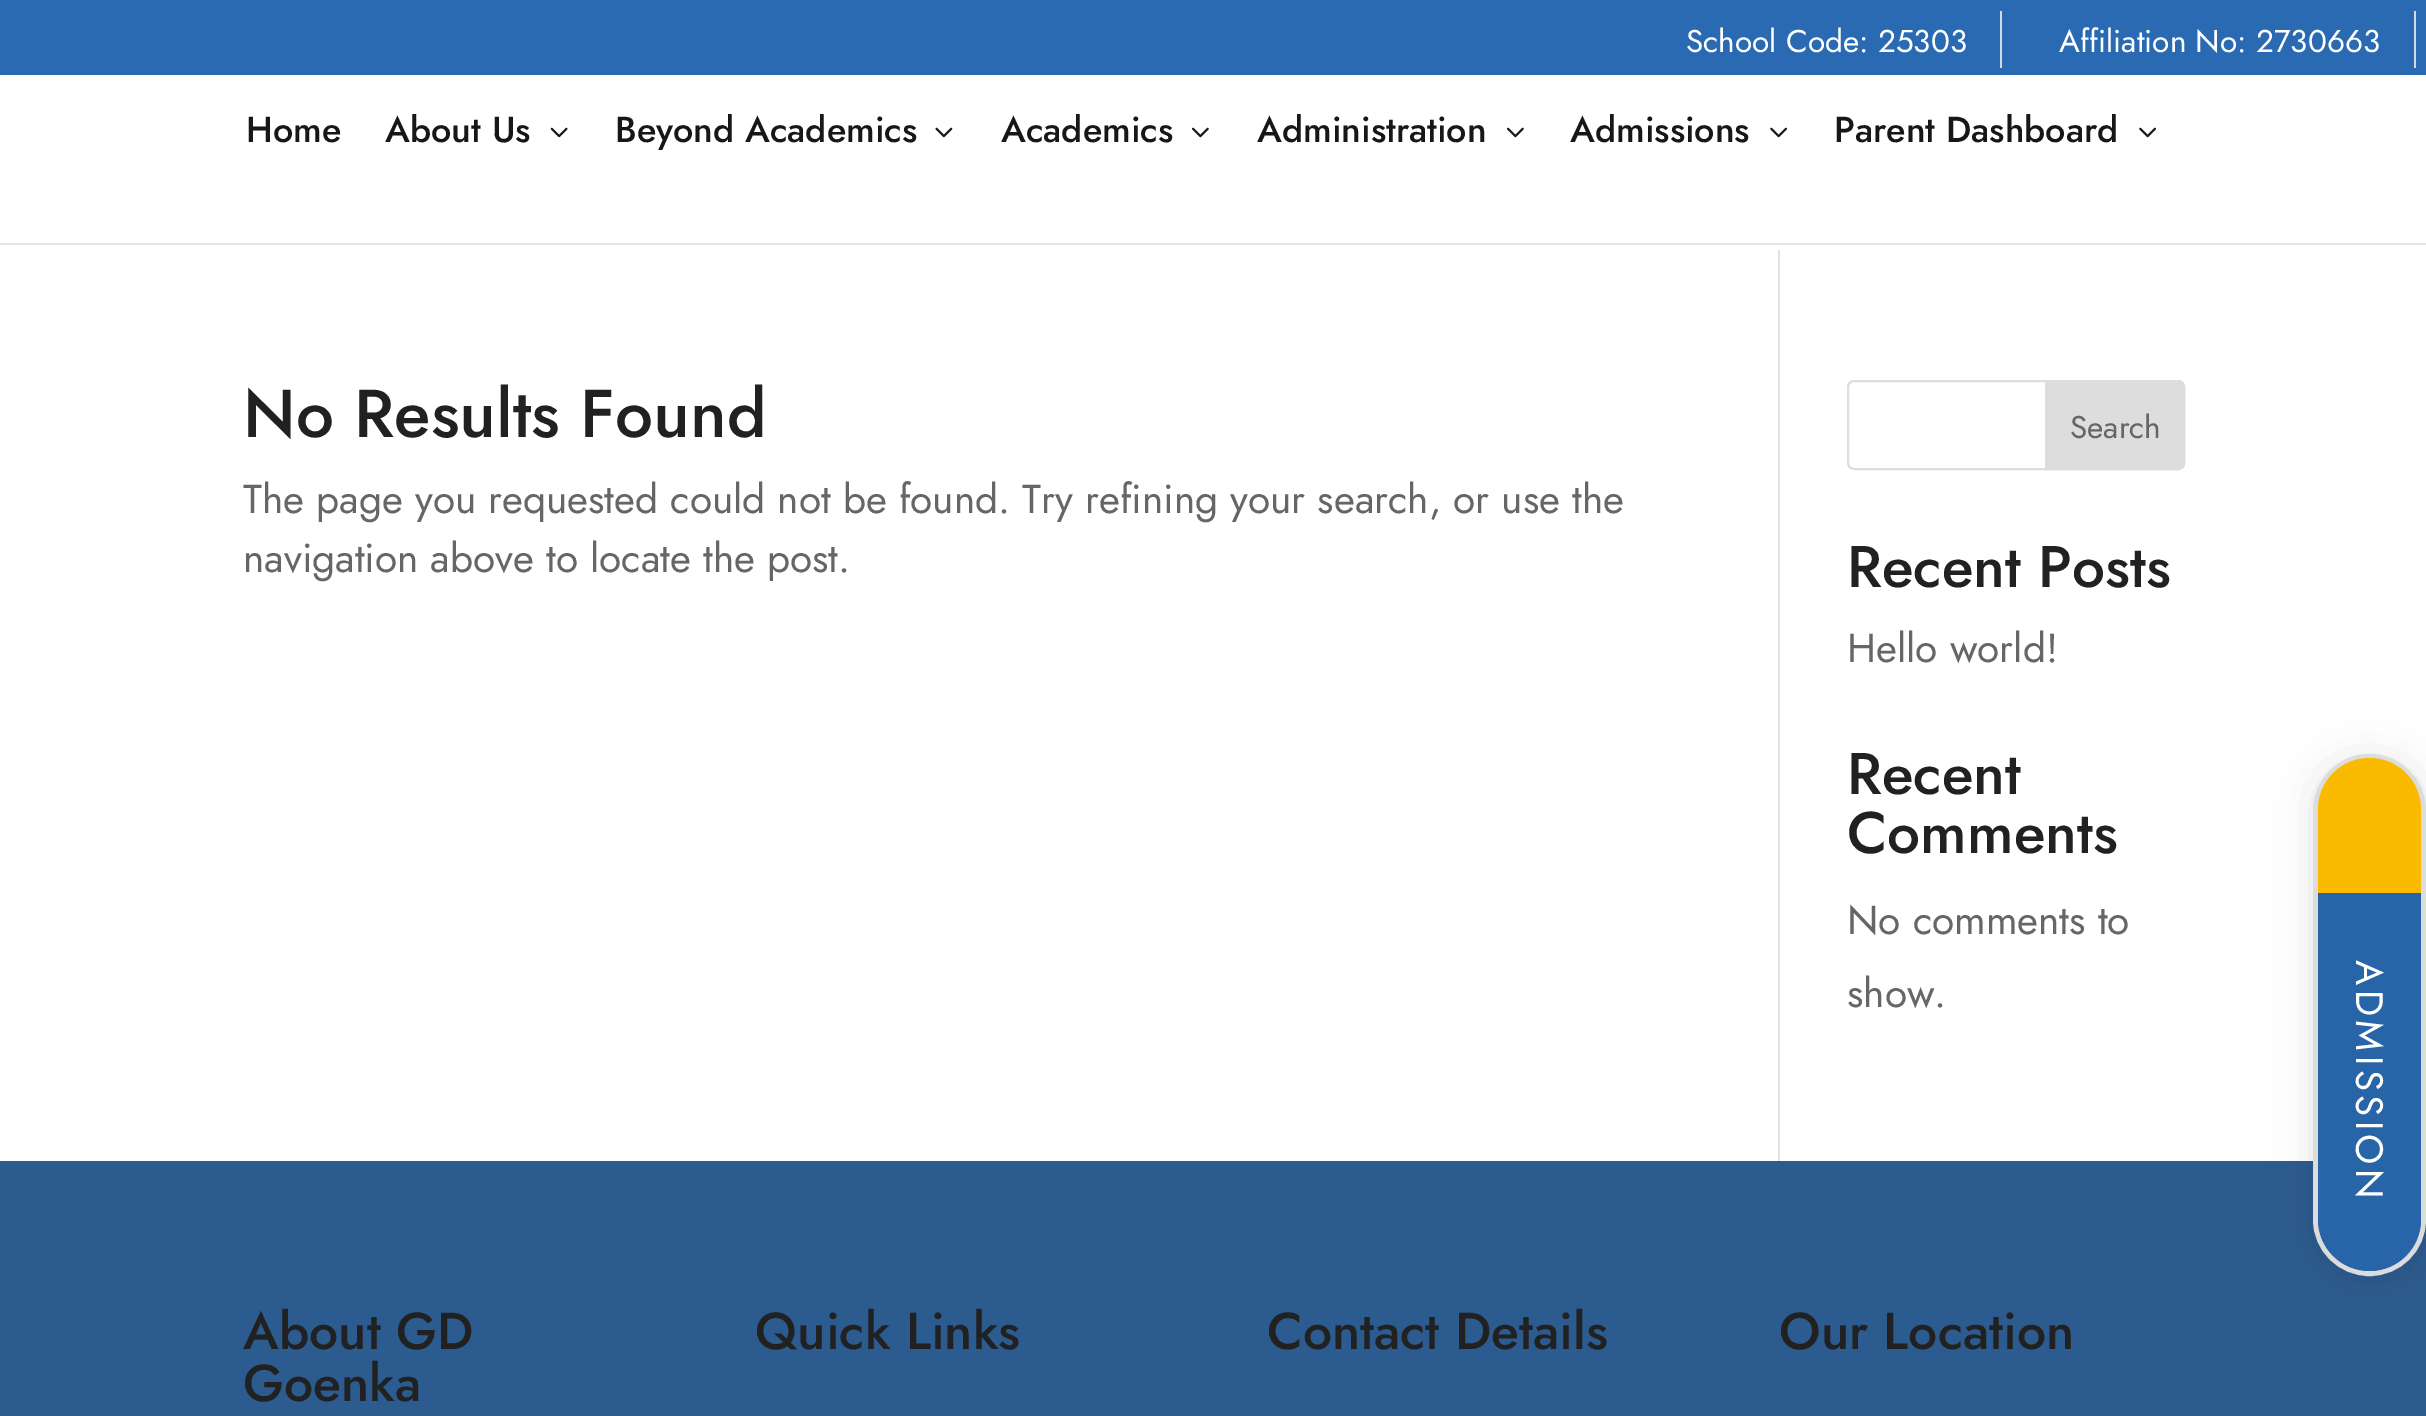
%!PS
<< /PageSize [2426 1416] /PageUsesTransparency true >> setpagedevice
/alpha { dup .setfillconstantalpha .setstrokeconstantalpha } def
/roundrect { 5 dict begin { /r /h /w /y /x } { exch def } forall
  x r add y moveto x w add y 2 copy h add r arct x w add y h add x 1 index r arct
  x y h add x y r arct x y 2 copy exch w add exch r arct closepath end } def
/shadow { 12 dict begin { /a /b /q /h /w /y /x } { exch def } forall gsave /was 0 def
  9 -2 -9 { dup b mul 4 div /e exch def 1 sub .425 mul 2.718 exch exp 1 add a .99 .min exch div /now exch def
    1 1 now sub 1 was sub div sub alpha /was now def
    w h .min e 2 mul add 0 gt { x e sub y e sub w e 2 mul add h e 2 mul add
      q e add b .6 mul add w h .min 2 div e add .min 0 .max roundrect fill } if } for grestore end } def
/picture { 5 dict begin { /h /w /y /x /name } { exch def } forall
  gsave x y translate w h scale
  w h 8 [w 0 0 h 0 0] name (r) file false 3 colorimage grestore end } def
0 .pushpdf14devicefilter
0 1416 translate 1 -1 scale
4 setmiterlimit
1 setgray
0 0 2426 1416 rectfill
0.165 0.416 0.702 setrgbcolor
0 0 2426 68 rectfill
0.835 0.855 0.875 setrgbcolor
2000 11 2 59 rectfill
/Jost-Regular [31.5 0 0 -31.5 0 0] selectfont
1 setgray
1686 52 moveto (School Code: 25303) show
0.835 0.855 0.875 setrgbcolor
2414 11 2 59 rectfill
1 setgray
2059 52 moveto (Affiliation No: 2730663) show
0.902 setgray
newpath 0 243 moveto 0 245 lineto 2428 245 lineto 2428 70 lineto 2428 243 lineto closepath fill
0.165 0.416 0.702 setrgbcolor
0 68 2426 7 rectfill
/Jost-Medium [36 0 0 -36 0 0] selectfont
0.09 setgray
246 142 moveto (Home) show
385 142 moveto (About Us) show
(img1.rgb) 550 127 18 11 picture
615 142 moveto (Beyond Academics) show
(img2.rgb) 935 127 18 11 picture
1001 142 moveto (Academics) show
(img3.rgb) 1192 127 17 11 picture
1257 142 moveto (Administration) show
(img3.rgb) 1507 127 17 11 picture
1570 142 moveto (Admissions) show
(img4.rgb) 1770 127 17 11 picture
1834 142 moveto (Parent Dashboard) show
(img4.rgb) 2139 127 17 11 picture
0.886 setgray
1778 250 2 911 rectfill
/Jost-Medium [67.5 0 0 -67.5 0 0] selectfont
0.129 setgray
243 437 moveto (No Results Found) show
/Jost-Regular [40.5 0 0 -40.5 0 0] selectfont
0.4 setgray
243 513 moveto (The page you requested could not be found. Try refining your search, or use the) show
243 572 moveto (navigation above to locate the post.) show
0.867 setgray
2 setlinewidth
1848 381 336 88 6 roundrect stroke
newpath 2046 381 moveto 2178 381 lineto 2181.5 381 2184 383.5 2184 387 curveto 2184 463 lineto 2184 466.5 2181.5 469 2178 469 curveto 2046 469 lineto closepath gsave fill grestore
stroke
/Jost-Regular [31.5 0 0 -31.5 0 0] selectfont
0.4 setgray
2070 438 moveto (Search) show
/Jost-Medium [58.5 0 0 -58.5 0 0] selectfont
0.129 setgray
1847 587 moveto (Recent Posts) show
/Jost-Regular [40.5 0 0 -40.5 0 0] selectfont
0.4 setgray
1847 662 moveto (Hello world!) show
/Jost-Medium [58.5 0 0 -58.5 0 0] selectfont
0.129 setgray
1847 794 moveto (Recent) show
1847 853 moveto (Comments) show
/Jost-Regular [40.5 0 0 -40.5 0 0] selectfont
0.4 setgray
1847 934 moveto (No comments to) show
1847 1007 moveto (show.) show
0.173 0.357 0.561 setrgbcolor
0 1161 2426 255 rectfill
/Jost-Medium [51.75 0 0 -51.75 0 0] selectfont
0.129 setgray
243 1349 moveto (About GD) show
243 1401 moveto (Goenka) show
755 1349 moveto (Quick Links) show
1267 1349 moveto (Contact Details) show
1779 1349 moveto (Our Location) show
0 setgray
2313 758 113 522 56.5 20 0.11 shadow
0.867 0.863 0.863 setrgbcolor
5 setlinewidth
2315.5 756.5 108 517 54 roundrect stroke
0.98 0.729 0 setrgbcolor
newpath 2369.5 758 moveto 2398 758 2421 781 2421 809.5 curveto 2421 893 lineto 2318 893 lineto 2318 809.5 lineto 2318 781 2341 758 2369.5 758 curveto closepath fill
0.157 0.392 0.659 setrgbcolor
newpath 2318 893 moveto 2421 893 lineto 2421 1219.5 lineto 2421 1248 2398 1271 2369.5 1271 curveto 2341 1271 2318 1248 2318 1219.5 curveto closepath fill
/Jost-Regular [38.25 0 0 -38.25 0 0] selectfont
1 setgray
gsave 2356 960 translate 90 rotate 0 0 moveto 4.5 0 (ADMISSION) ashow grestore
.poppdf14devicefilter showpage
